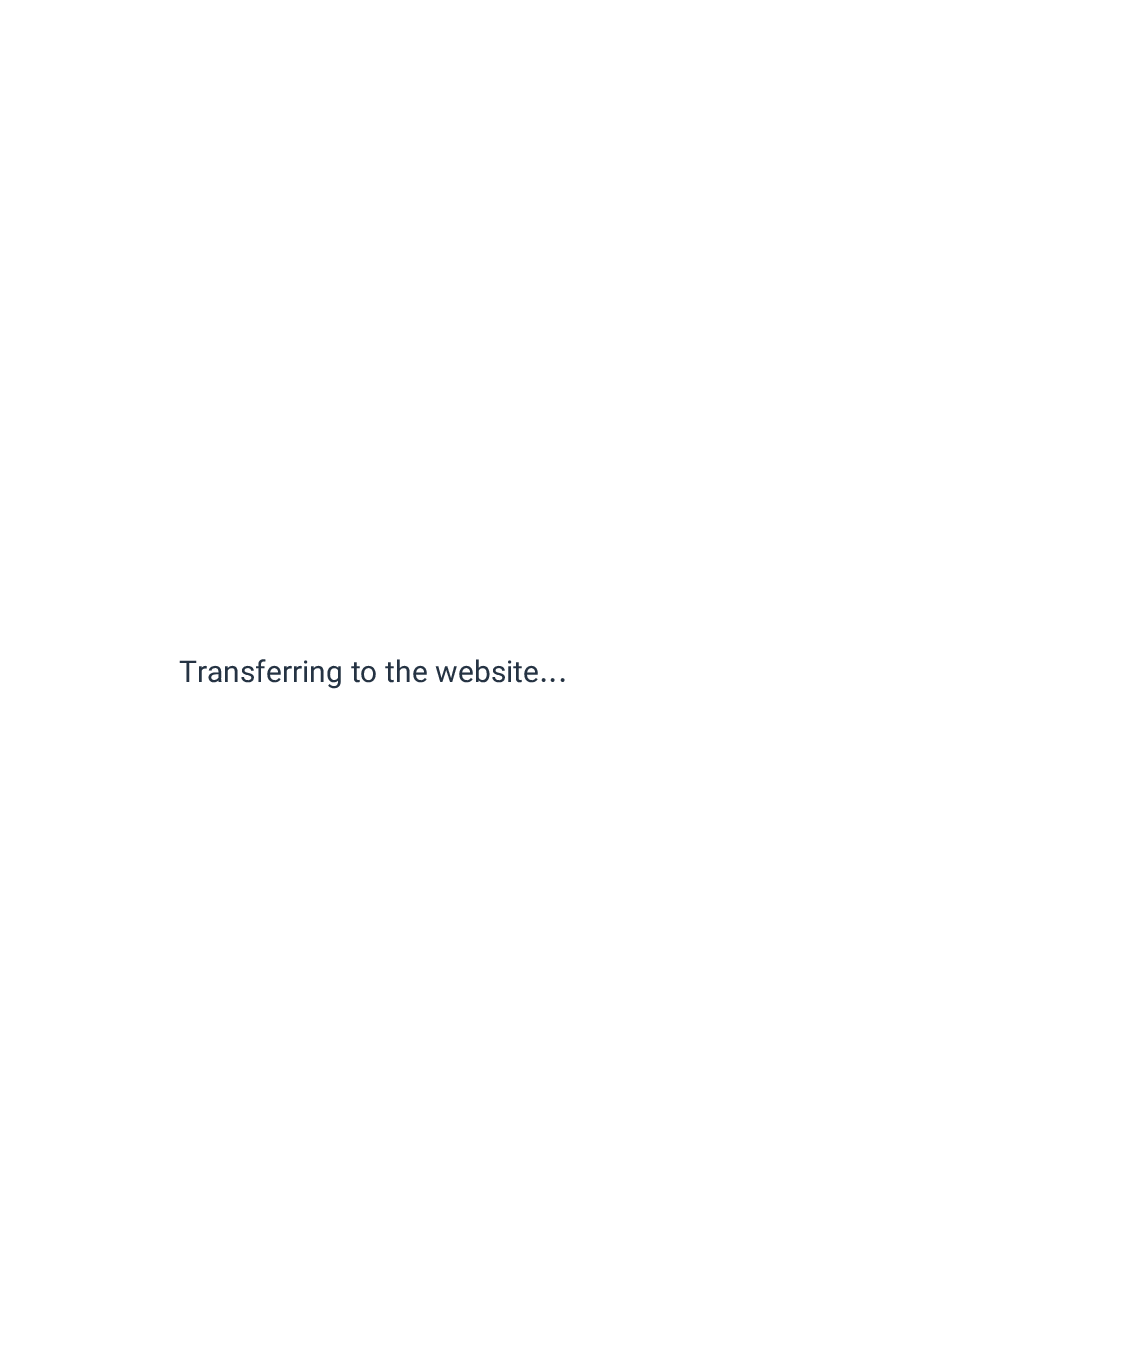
%!PS
<< /PageSize [1121 1369] >> setpagedevice
0 1369 translate 1 -1 scale
4 setmiterlimit
1 setgray
0 0 1121 1369 rectfill
/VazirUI-Regular [30 0 0 -30 0 0] selectfont
0.145 0.2 0.263 setrgbcolor
179 682 moveto (Transferring to the website...) show
showpage
